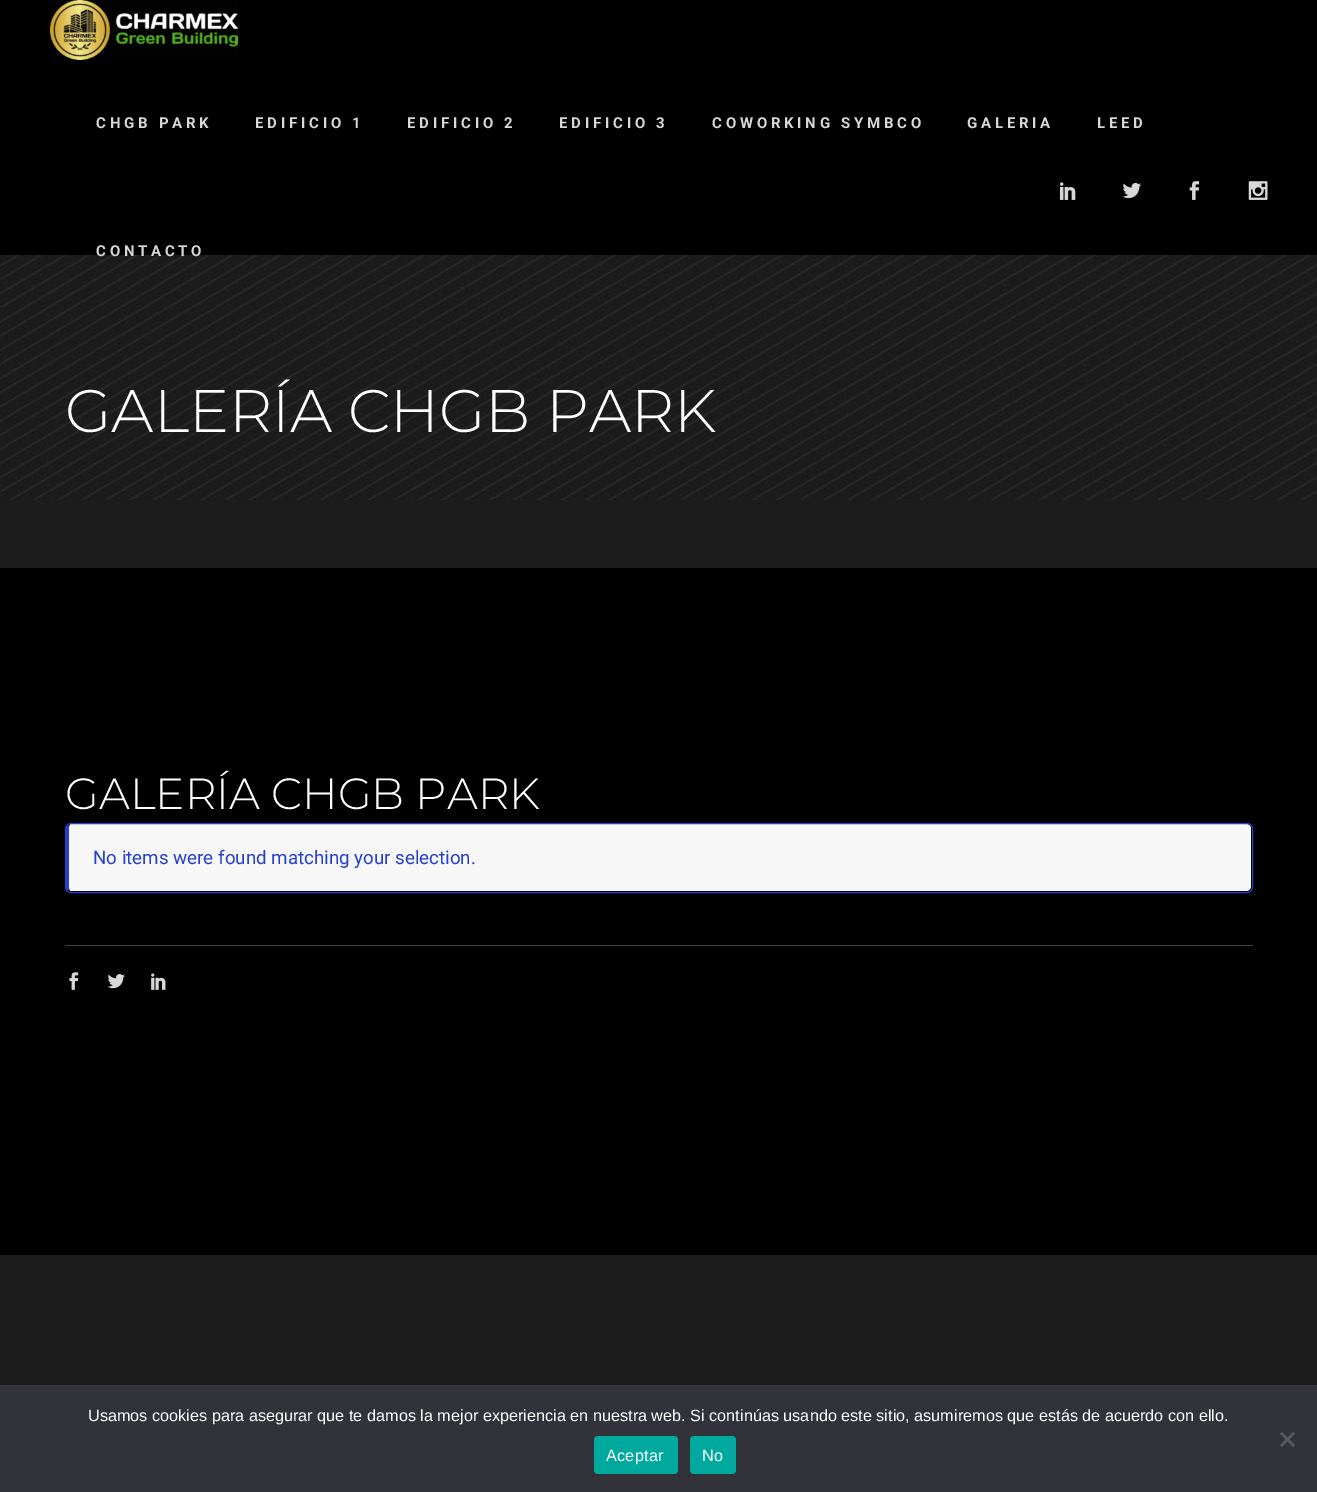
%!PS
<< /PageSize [1317 1492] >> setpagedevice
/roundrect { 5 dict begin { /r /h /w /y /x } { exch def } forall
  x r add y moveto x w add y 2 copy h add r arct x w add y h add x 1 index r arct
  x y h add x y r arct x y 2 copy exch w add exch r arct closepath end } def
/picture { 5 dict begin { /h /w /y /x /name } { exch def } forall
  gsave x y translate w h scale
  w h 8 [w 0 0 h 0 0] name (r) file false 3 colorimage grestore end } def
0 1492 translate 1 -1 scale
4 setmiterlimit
0 setgray
0 0 1317 1492 rectfill
(img1.rgb) 50 0 188 60 picture
/Roboto-Bold [15 0 0 -15 0 0] selectfont
0.847 setgray
96 128 moveto 3.75 0 (CHGB PARK) ashow
255 128 moveto 3.75 0 (EDIFICIO 1) ashow
407 128 moveto 3.75 0 (EDIFICIO 2) ashow
559 128 moveto 3.75 0 (EDIFICIO 3) ashow
712 128 moveto 3.75 0 (COWORKING SYMBCO) ashow
967 128 moveto 3.75 0 (GALERIA) ashow
1097 128 moveto 3.75 0 (LEED) ashow
0.11 setgray
0 499 1317 69 rectfill
(img6.rgb) 0 255 1317 245 picture
0.847 setgray
96 256 moveto 3.75 0 (CONTACTO) ashow
(img2.rgb) 1059 182 17 18 picture
(img3.rgb) 1122 182 20 17 picture
(img4.rgb) 1189 181 11 19 picture
(img5.rgb) 1248 181 20 19 picture
/Montserrat-Light [60 0 0 -60 0 0] selectfont
1 setgray
65 432 moveto (GALERÍA CHGB PARK) show
/Montserrat-Light [43.75 0 0 -43.75 0 0] selectfont
65 809 moveto (GALERÍA CHGB PARK) show
0.969 setgray
newpath 71 824 moveto 1246 824 lineto 1249 824 1251 826 1251 829 curveto 1251 886 lineto 1251 889 1249 891 1246 891 curveto 71 891 lineto 70 891 69 889 69 886 curveto 69 829 lineto 69 826 70 824 71 824 curveto closepath fill
0.145 0.251 0.8 setrgbcolor
65.5 823.5 1187 69 5.5 roundrect stroke
66 826 3 64 rectfill
/Roboto-Regular [18.75 0 0 -18.75 0 0] selectfont
93 864 moveto (No items were found matching your selection.) show
0.259 setgray
65 945 1188 1 rectfill
(img7.rgb) 69 972 10 18 picture
(img8.rgb) 107 974 18 15 picture
(img9.rgb) 151 973 15 17 picture
0.11 setgray
0 1255 1317 130 rectfill
0.196 0.196 0.227 setrgbcolor
0 1385 1317 107 rectfill
/LiberationSans-Regular [16.25 0 0 -16.25 0 0] selectfont
1 setgray
88 1421 moveto (Usamos cookies para asegurar que te damos la mejor experiencia en nuestra web. Si continúas usando este sitio, asumiremos que estás de acuerdo con ello.) show
0.349 0.349 0.365 setrgbcolor
newpath 1293 1432 moveto 1295 1433.5 lineto 1282 1447 lineto 1280 1445 lineto closepath fill
newpath 1280 1433.5 moveto 1282 1432 lineto 1295 1445 lineto 1293 1447 lineto closepath fill
0 0.663 0.616 setrgbcolor
594 1436 84 38 4 roundrect fill
1 setgray
606 1461 moveto 0.25 0 (Aceptar) ashow
0 0.663 0.616 setrgbcolor
690 1436 46 38 4 roundrect fill
1 setgray
702 1461 moveto 0.25 0 (No) ashow
showpage
